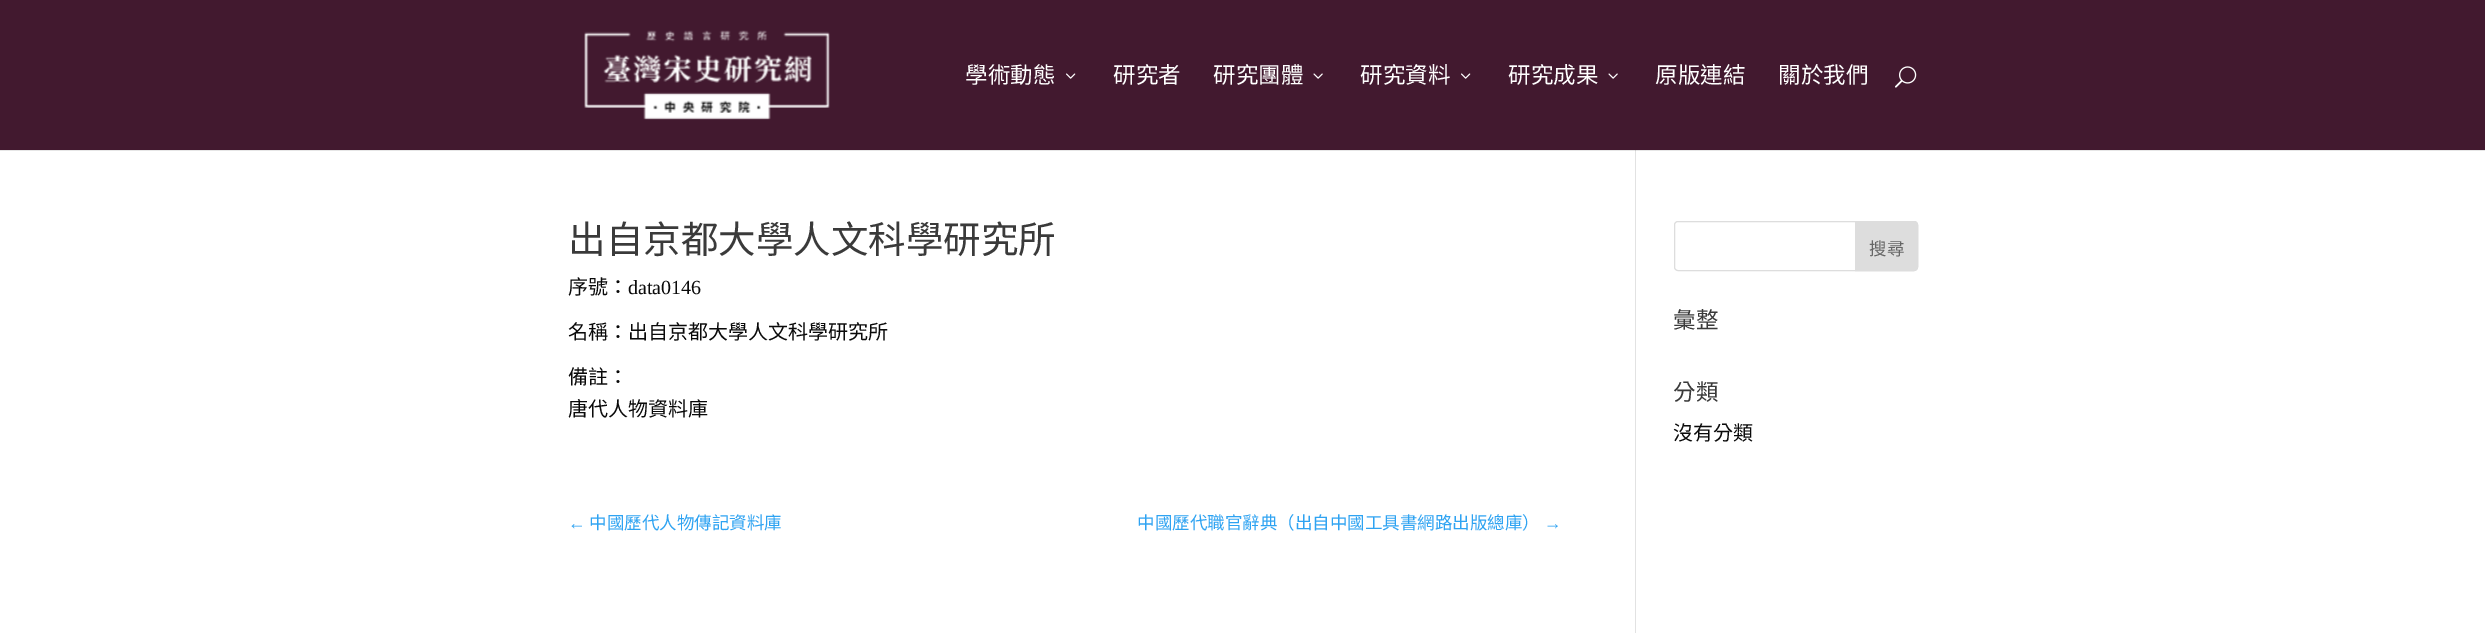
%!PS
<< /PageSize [2485 633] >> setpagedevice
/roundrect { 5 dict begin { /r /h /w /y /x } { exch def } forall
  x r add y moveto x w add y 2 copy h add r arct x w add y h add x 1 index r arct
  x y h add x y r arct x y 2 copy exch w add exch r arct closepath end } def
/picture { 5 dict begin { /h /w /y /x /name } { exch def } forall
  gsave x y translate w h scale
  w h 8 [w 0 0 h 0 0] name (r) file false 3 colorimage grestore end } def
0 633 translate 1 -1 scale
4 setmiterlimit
1 setgray
0 0 2485 633 rectfill
0.902 setgray
0 150 2485 1 rectfill
0.886 setgray
1635 149 1 484 rectfill
0.259 0.098 0.184 setrgbcolor
0 0 2485 150 rectfill
(img1.rgb) 584 30 246 90 picture
/NotoSansCJKTC-Regular [22.5 0 0 -22.5 0 0] selectfont
1 setgray
965 83 moveto (學術動態) show
(img2.rgb) 1066 73 10 6 picture
1113 83 moveto (研究者) show
1213 83 moveto (研究團體) show
(img3.rgb) 1313 73 10 6 picture
1360 83 moveto (研究資料) show
(img2.rgb) 1461 73 10 6 picture
1508 83 moveto (研究成果) show
(img3.rgb) 1608 73 10 6 picture
1655 83 moveto (原版連結) show
1778 83 moveto (關於我們) show
(img4.rgb) 1895 66 22 22 picture
0.796 setgray
1635 150 1 1 rectfill
/NotoSansCJKTC-Regular [37.5 0 0 -37.5 0 0] selectfont
0.227 setgray
568 253 moveto (出自京都大學人文科學研究所) show
/NotoSansCJKTC-Regular [20 0 0 -20 0 0] selectfont
0.039 setgray
568 294 moveto (序號：) show
/LiberationSerif-Regular [20 0 0 -20 0 0] selectfont
628 294 moveto (data0146) show
/NotoSansCJKTC-Regular [20 0 0 -20 0 0] selectfont
568 339 moveto (名稱：出自京都大學人文科學研究所) show
568 384 moveto (備註：) show
568 416 moveto (唐代人物資料庫) show
/LiberationSerif-Regular [17.5 0 0 -17.5 0 0] selectfont
0.18 0.639 0.949 setrgbcolor
568 529 moveto (←) show
/NotoSansCJKTC-Regular [17.5 0 0 -17.5 0 0] selectfont
589 529 moveto (中國歷代人物傳記資料庫) show
1137 529 moveto (中國歷代職官辭典（出自中國工具書網路出版總庫）) show
/LiberationSerif-Regular [17.5 0 0 -17.5 0 0] selectfont
1544 529 moveto (→) show
0.867 setgray
1674.5 221.5 243 49 3.5 roundrect stroke
newpath 1855.5 221.5 moveto 1914 221.5 lineto 1916 221.5 1917.5 223 1917.5 225 curveto 1917.5 267 lineto 1917.5 269 1916 270.5 1914 270.5 curveto 1855.5 270.5 lineto closepath gsave fill grestore
stroke
/NotoSansCJKTC-Regular [17.5 0 0 -17.5 0 0] selectfont
0.4 setgray
1869 255 moveto (搜尋) show
/NotoSansCJKTC-Regular [22.5 0 0 -22.5 0 0] selectfont
0.227 setgray
1673 328 moveto (彙整) show
1673 400 moveto (分類) show
/NotoSansCJKTC-Regular [20 0 0 -20 0 0] selectfont
0.039 setgray
1673 440 moveto (沒有分類) show
showpage
